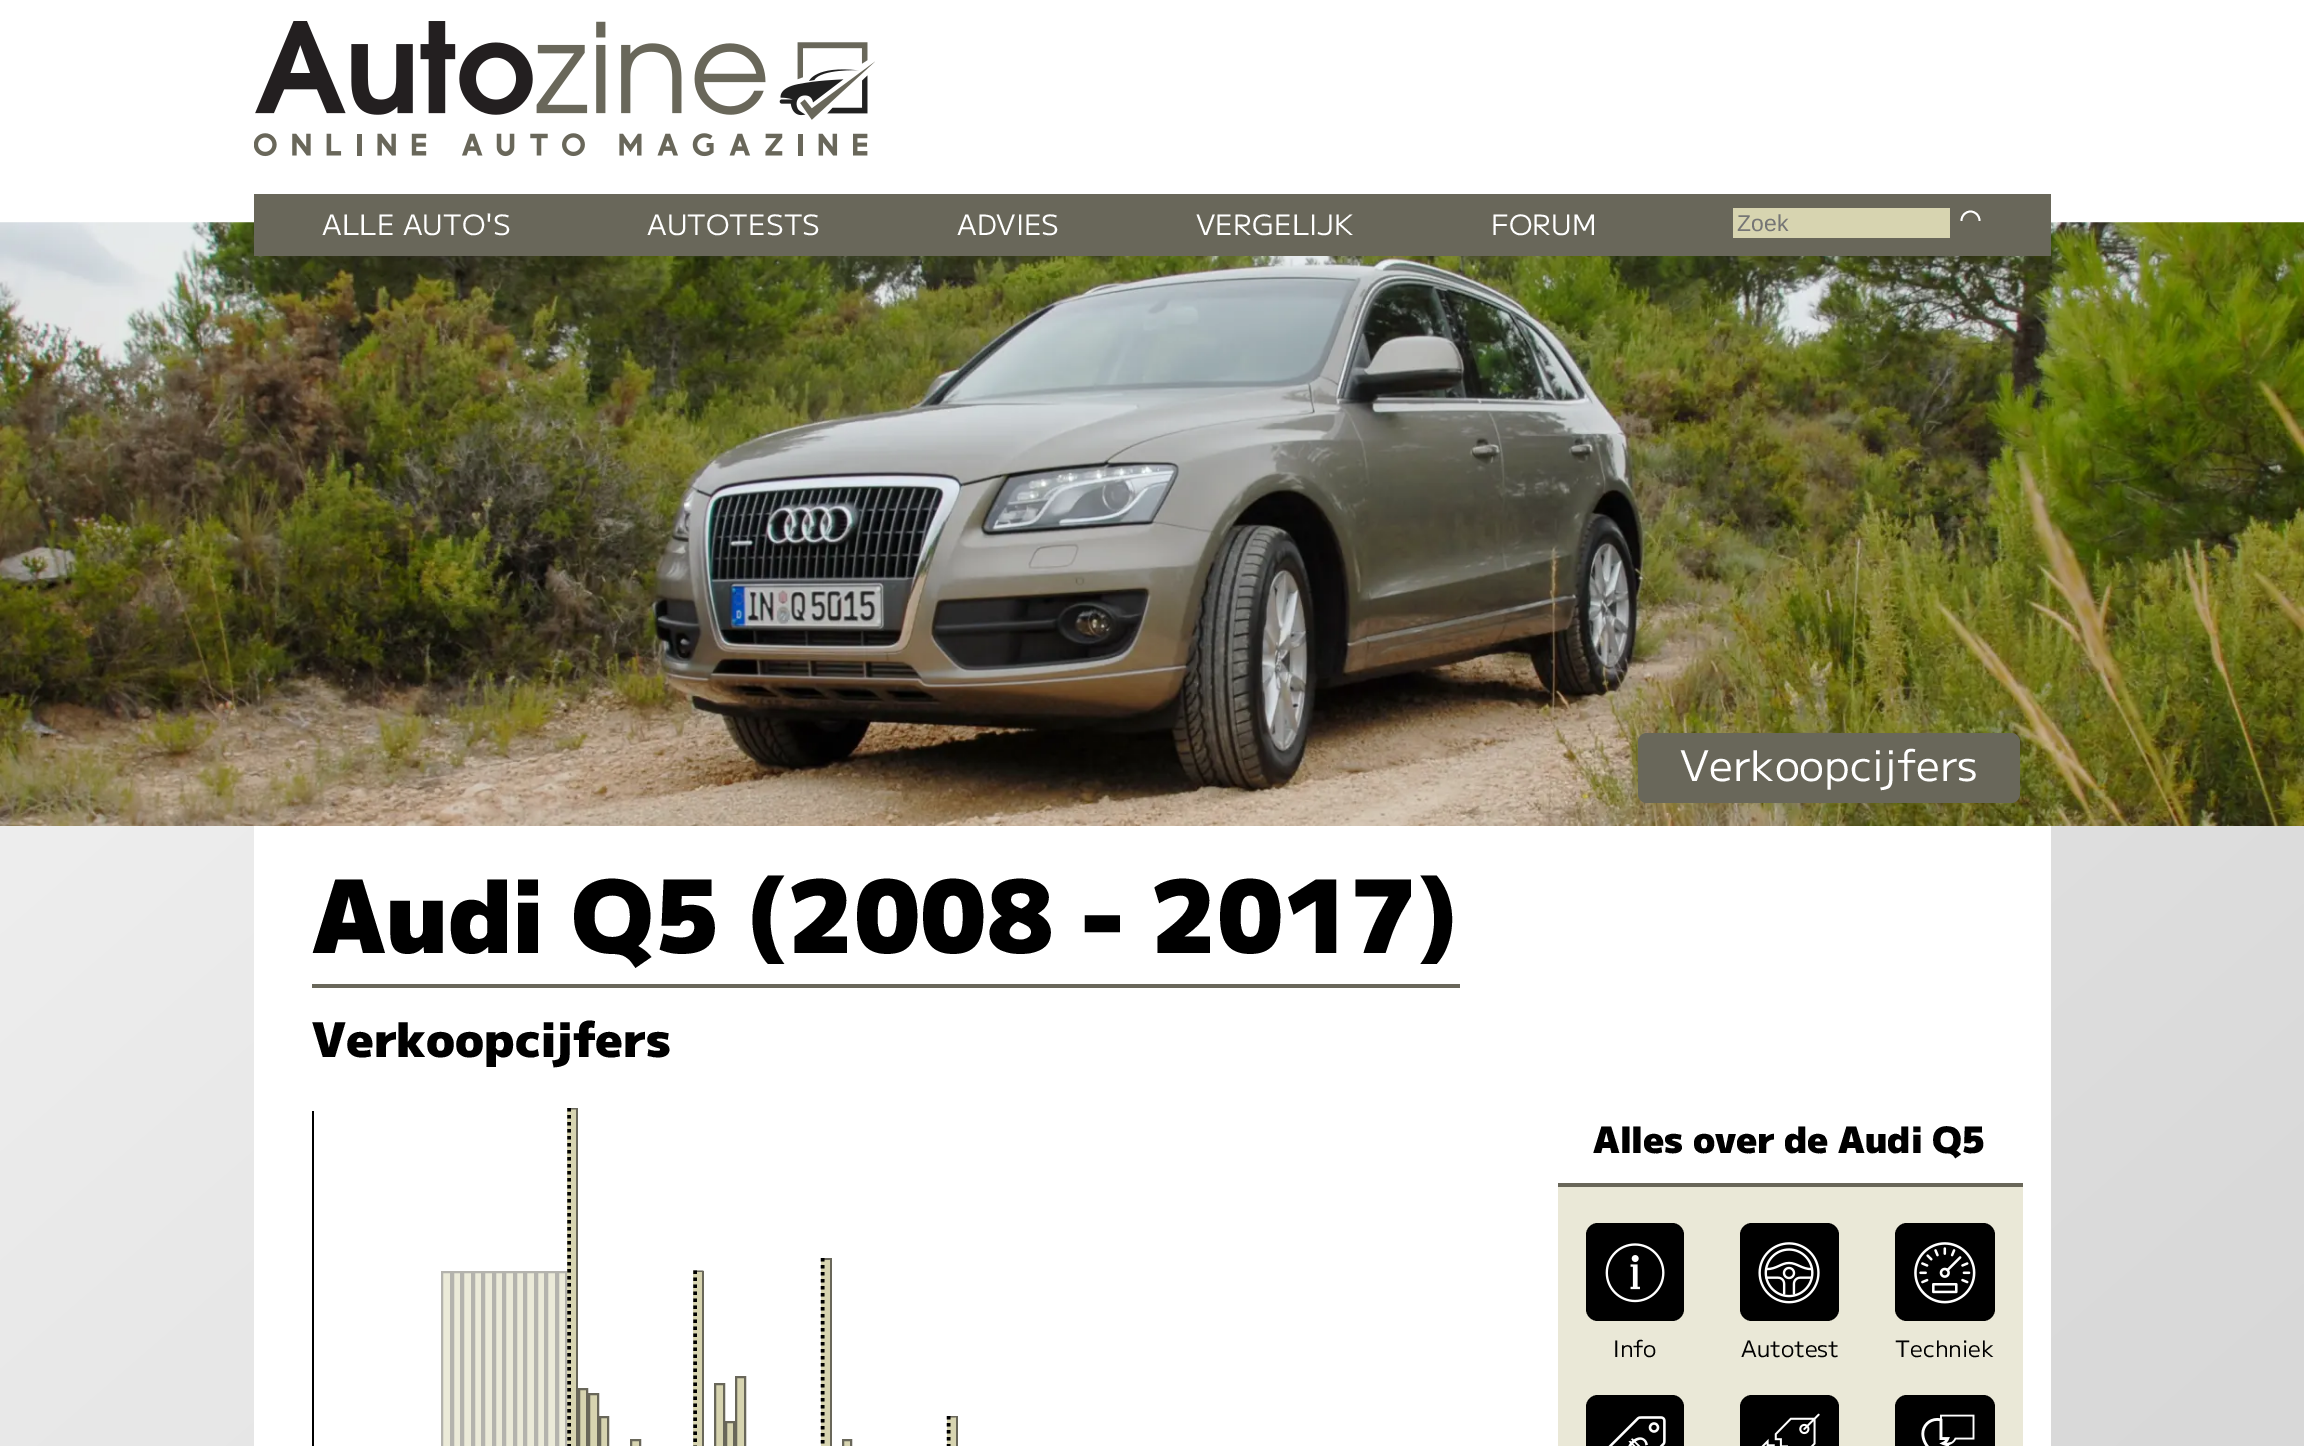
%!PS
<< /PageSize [2304 1446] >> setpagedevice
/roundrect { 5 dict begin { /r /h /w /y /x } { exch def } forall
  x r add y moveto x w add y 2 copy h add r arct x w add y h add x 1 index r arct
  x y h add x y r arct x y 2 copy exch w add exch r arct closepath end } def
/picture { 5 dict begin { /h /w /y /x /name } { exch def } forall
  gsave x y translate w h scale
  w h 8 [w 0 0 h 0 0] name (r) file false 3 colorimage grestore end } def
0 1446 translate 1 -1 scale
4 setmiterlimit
1 setgray
0 0 2304 1446 rectfill
(img1.rgb) 254 21 621 136 picture
(img2.rgb) 0 222 2304 604 picture
0.412 0.404 0.353 setrgbcolor
254 194 1797 62 rectfill
/MPLUS1-Regular [28 0 0 -28 0 0] selectfont
1 setgray
322 235 moveto (ALLE AUTO'S) show
647 235 moveto (AUTOTESTS) show
957 235 moveto (ADVIES) show
1196 235 moveto (VERGELIJK) show
1491 235 moveto (FORUM) show
0.843 0.831 0.69 setrgbcolor
1733 208 217 30 rectfill
/LiberationSans-Regular [23 0 0 -23 0 0] selectfont
0.459 setgray
1737 231 moveto (Zoek) show
gsave
1958 208 25 13 rectclip
1 setgray
1.8 setlinewidth
newpath 1970.5 220.5 9 0 360 arc closepath stroke
grestore
0.412 0.404 0.353 setrgbcolor
1638 733 382 70 9 roundrect fill
/MPLUS1-Regular [42 0 0 -42 0 0] selectfont
1 setgray
1680 781 moveto (Verkoopcijfers) show
gsave newpath 0 826 moveto 2304 826 lineto 2304 1446 lineto 0 1446 lineto closepath clip newpath
<< /ShadingType 2 /ColorSpace /DeviceRGB /Coords [170 679 2135 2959] /Extend [true true] /Function << /FunctionType 2 /Domain [0 1] /C0 [0.933 0.933 0.933] /C1 [0.8 0.8 0.8] /N 1 >> >> shfill grestore
254 826 1797 620 rectfill
0.412 0.404 0.353 setrgbcolor
312 984 1148 4 rectfill
/MPLUS1-Black [100.75 0 0 -100.75 0 0] selectfont
0 setgray
312 953 moveto (Audi Q5 \(2008 - 2017\)) show
/MPLUS1-Black [47.5 0 0 -47.5 0 0] selectfont
312 1057 moveto (Verkoopcijfers) show
312 1111 2 335 rectfill
0.922 0.918 0.847 setrgbcolor
newpath 442 1272 moveto 451 1272 lineto 451 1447 lineto 442 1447 lineto closepath gsave fill grestore
0.706 0.702 0.678 setrgbcolor
2 setlinewidth
stroke
0.922 0.918 0.847 setrgbcolor
newpath 453 1272 moveto 461 1272 lineto 461 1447 lineto 453 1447 lineto closepath gsave fill grestore
0.706 0.702 0.678 setrgbcolor
stroke
0.922 0.918 0.847 setrgbcolor
newpath 463 1272 moveto 472 1272 lineto 472 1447 lineto 463 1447 lineto closepath gsave fill grestore
0.706 0.702 0.678 setrgbcolor
stroke
0.922 0.918 0.847 setrgbcolor
newpath 474 1272 moveto 482 1272 lineto 482 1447 lineto 474 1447 lineto closepath gsave fill grestore
0.706 0.702 0.678 setrgbcolor
stroke
0.922 0.918 0.847 setrgbcolor
newpath 484 1272 moveto 493 1272 lineto 493 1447 lineto 484 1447 lineto closepath gsave fill grestore
0.706 0.702 0.678 setrgbcolor
stroke
0.922 0.918 0.847 setrgbcolor
newpath 495 1272 moveto 503 1272 lineto 503 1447 lineto 495 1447 lineto closepath gsave fill grestore
0.706 0.702 0.678 setrgbcolor
stroke
0.922 0.918 0.847 setrgbcolor
newpath 505 1272 moveto 514 1272 lineto 514 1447 lineto 505 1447 lineto closepath gsave fill grestore
0.706 0.702 0.678 setrgbcolor
stroke
0.922 0.918 0.847 setrgbcolor
newpath 516 1272 moveto 524 1272 lineto 524 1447 lineto 516 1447 lineto closepath gsave fill grestore
0.706 0.702 0.678 setrgbcolor
stroke
0.922 0.918 0.847 setrgbcolor
newpath 526 1272 moveto 535 1272 lineto 535 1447 lineto 526 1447 lineto closepath gsave fill grestore
0.706 0.702 0.678 setrgbcolor
stroke
0.922 0.918 0.847 setrgbcolor
newpath 537 1272 moveto 545 1272 lineto 545 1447 lineto 537 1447 lineto closepath gsave fill grestore
0.706 0.702 0.678 setrgbcolor
stroke
0.922 0.918 0.847 setrgbcolor
newpath 547 1272 moveto 556 1272 lineto 556 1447 lineto 547 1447 lineto closepath gsave fill grestore
0.706 0.702 0.678 setrgbcolor
stroke
0.922 0.918 0.847 setrgbcolor
newpath 558 1272 moveto 566 1272 lineto 566 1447 lineto 558 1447 lineto closepath gsave fill grestore
0.706 0.702 0.678 setrgbcolor
stroke
0.843 0.831 0.69 setrgbcolor
567 1108 9 338 rectfill
0.412 0.404 0.353 setrgbcolor
newpath 567 1108 moveto 577.5 1108 lineto 576 1109.5 lineto 570.5 1109.5 lineto closepath fill
576 1108 2 338 rectfill
0 setgray
3.5 setlinewidth
[3.5 3.5] 0 setdash
newpath 569 1108 moveto 569 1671 lineto stroke
0.843 0.831 0.69 setrgbcolor
newpath 579 1389 moveto 587 1389 lineto 587 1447 lineto 579 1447 lineto closepath gsave fill grestore
0.412 0.404 0.353 setrgbcolor
2 setlinewidth
[] 0 setdash
stroke
0.843 0.831 0.69 setrgbcolor
newpath 589 1394 moveto 598 1394 lineto 598 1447 lineto 589 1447 lineto closepath gsave fill grestore
0.412 0.404 0.353 setrgbcolor
stroke
0.843 0.831 0.69 setrgbcolor
newpath 600 1417 moveto 608 1417 lineto 608 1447 lineto 600 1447 lineto closepath gsave fill grestore
0.412 0.404 0.353 setrgbcolor
stroke
0.843 0.831 0.69 setrgbcolor
newpath 631 1440 moveto 640 1440 lineto 640 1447 lineto 631 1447 lineto closepath gsave fill grestore
0.412 0.404 0.353 setrgbcolor
stroke
0.843 0.831 0.69 setrgbcolor
693 1271 9 175 rectfill
0.412 0.404 0.353 setrgbcolor
newpath 693 1270.5 moveto 703.5 1270.5 lineto 702 1272 lineto 696.5 1272 lineto closepath fill
702 1271 2 175 rectfill
0 setgray
3.5 setlinewidth
[3.5 3.5] 0 setdash
newpath 695 1270.5 moveto 695 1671 lineto stroke
0.843 0.831 0.69 setrgbcolor
newpath 715 1384 moveto 724 1384 lineto 724 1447 lineto 715 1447 lineto closepath gsave fill grestore
0.412 0.404 0.353 setrgbcolor
2 setlinewidth
[] 0 setdash
stroke
0.843 0.831 0.69 setrgbcolor
newpath 726 1422 moveto 734 1422 lineto 734 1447 lineto 726 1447 lineto closepath gsave fill grestore
0.412 0.404 0.353 setrgbcolor
stroke
0.843 0.831 0.69 setrgbcolor
newpath 736 1377 moveto 745 1377 lineto 745 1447 lineto 736 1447 lineto closepath gsave fill grestore
0.412 0.404 0.353 setrgbcolor
stroke
0.843 0.831 0.69 setrgbcolor
821 1259 9 187 rectfill
0.412 0.404 0.353 setrgbcolor
newpath 821 1258 moveto 831 1258 lineto 829.5 1260 lineto 824 1260 lineto closepath fill
830 1258 2 188 rectfill
0 setgray
3.5 setlinewidth
[3.5 3.5] 0 setdash
newpath 822.5 1258 moveto 822.5 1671 lineto stroke
0.843 0.831 0.69 setrgbcolor
newpath 843 1440 moveto 851 1440 lineto 851 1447 lineto 843 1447 lineto closepath gsave fill grestore
0.412 0.404 0.353 setrgbcolor
2 setlinewidth
[] 0 setdash
stroke
0.843 0.831 0.69 setrgbcolor
947 1417 9 29 rectfill
0.412 0.404 0.353 setrgbcolor
newpath 947 1416 moveto 957 1416 lineto 955.5 1417.5 lineto 950 1417.5 lineto closepath fill
956 1416 2 30 rectfill
0 setgray
3.5 setlinewidth
[3.5 3.5] 0 setdash
newpath 948.5 1416 moveto 948.5 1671 lineto stroke
/MPLUS1-Black [36.4 0 0 -36.4 0 0] selectfont
1593 1153 moveto (Alles over de Audi Q5) show
0.918 0.91 0.843 setrgbcolor
1558 1187 465 259 rectfill
0.412 0.404 0.353 setrgbcolor
1558 1183 465 4 rectfill
0 setgray
1586 1223 98 98 12 roundrect fill
(img3.rgb) 1605 1243 60 60 picture
/MPLUS1-Regular [22.5 0 0 -22.5 0 0] selectfont
1613 1357 moveto (Info) show
1740 1223 99 98 12 roundrect fill
(img4.rgb) 1758 1242 62 62 picture
1741 1357 moveto (Autotest) show
1895 1223 100 98 12 roundrect fill
(img5.rgb) 1914 1242 62 62 picture
1895 1357 moveto (Techniek) show
1586 1395 98 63 12 roundrect fill
(img6.rgb) 1608 1416 58 30 picture
1740 1395 99 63 12 roundrect fill
(img7.rgb) 1761 1413 59 33 picture
1895 1395 100 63 12 roundrect fill
(img8.rgb) 1921 1414 54 32 picture
showpage
